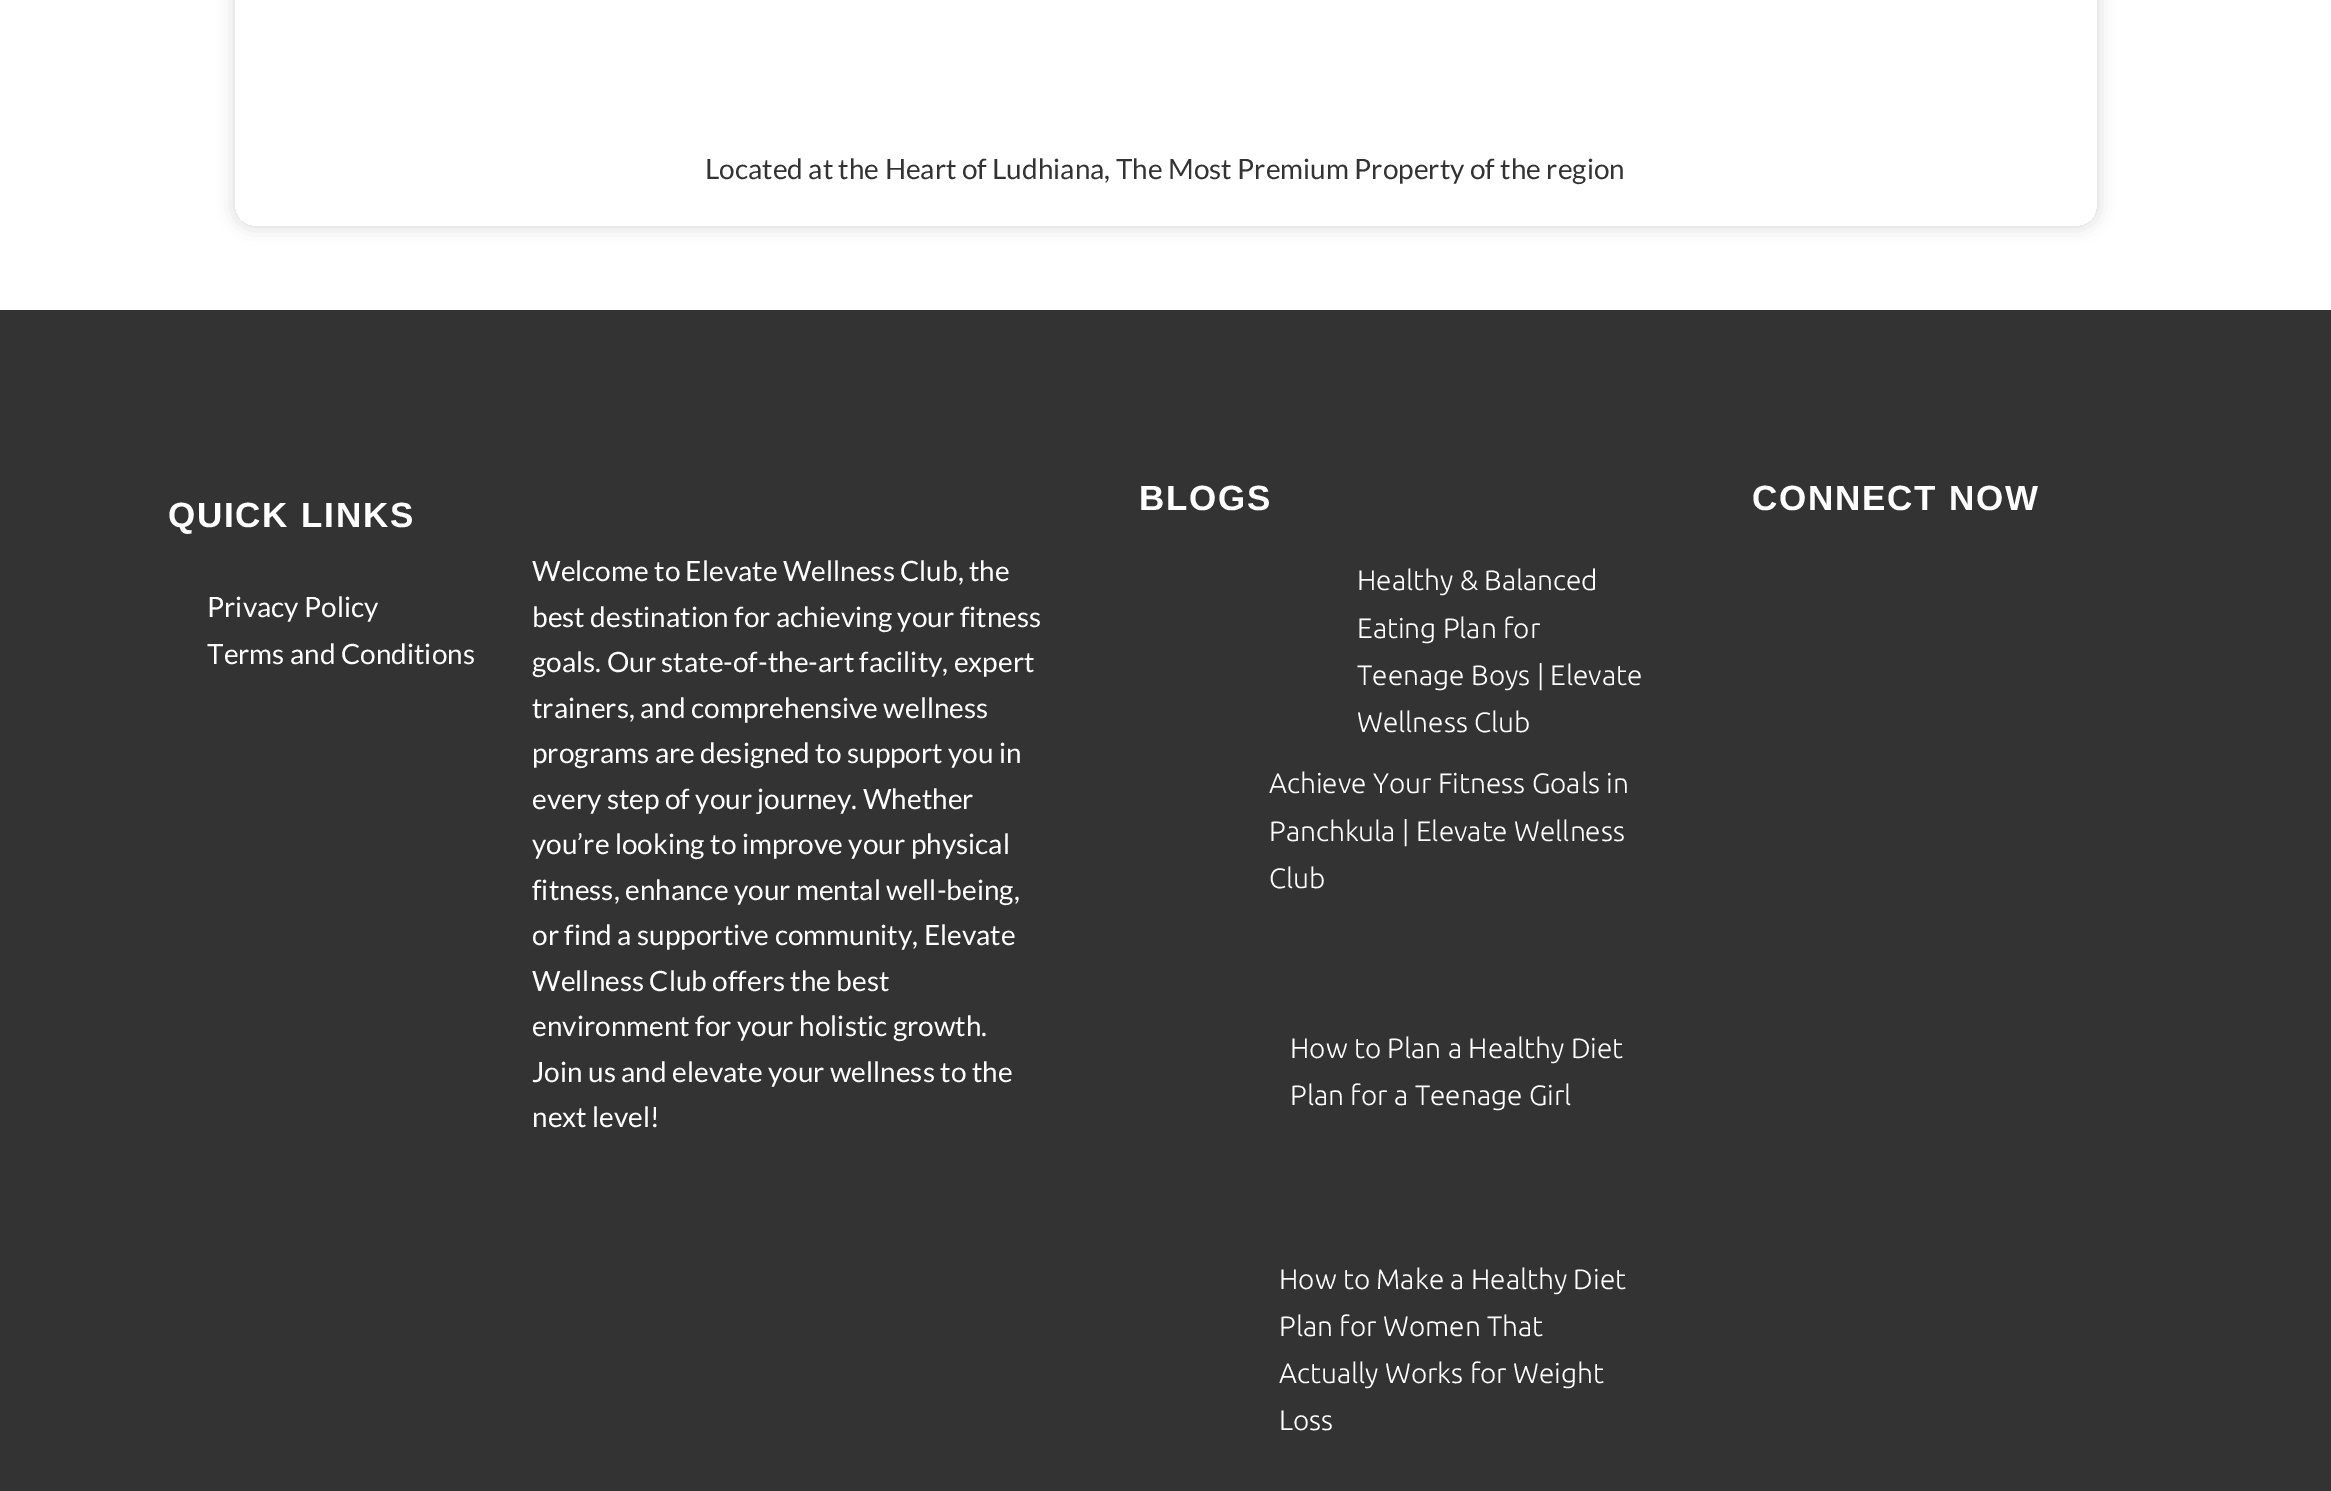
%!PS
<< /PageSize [2331 1491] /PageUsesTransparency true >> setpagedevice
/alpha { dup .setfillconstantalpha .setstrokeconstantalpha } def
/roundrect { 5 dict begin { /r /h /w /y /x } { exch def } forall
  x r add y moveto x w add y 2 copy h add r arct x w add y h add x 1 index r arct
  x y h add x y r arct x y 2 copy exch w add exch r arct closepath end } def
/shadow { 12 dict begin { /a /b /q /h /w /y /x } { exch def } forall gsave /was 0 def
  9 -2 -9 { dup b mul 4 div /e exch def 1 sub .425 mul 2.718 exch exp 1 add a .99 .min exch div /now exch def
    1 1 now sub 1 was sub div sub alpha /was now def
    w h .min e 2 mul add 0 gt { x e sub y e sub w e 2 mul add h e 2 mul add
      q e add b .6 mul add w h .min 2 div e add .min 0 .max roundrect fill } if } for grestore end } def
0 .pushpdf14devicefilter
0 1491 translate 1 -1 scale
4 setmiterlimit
1 setgray
0 0 2331 1491 rectfill
gsave
newpath 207 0 moveto 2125 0 lineto 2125 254 lineto 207 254 lineto closepath 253 -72 moveto 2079 -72 lineto 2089 -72 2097 -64 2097 -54 curveto 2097 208 lineto 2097 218 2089 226 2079 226 curveto 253 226 lineto 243 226 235 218 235 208 curveto 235 -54 lineto 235 -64 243 -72 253 -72 curveto closepath eoclip newpath
0.827 setgray
235 -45 1862 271 18 9 1 shadow
grestore
/Lato-Regular [28 0 0 -28 0 0] selectfont
0.2 setgray
705 179 moveto (Located at the Heart of Ludhiana, The Most Premium Property of the region) show
0 310 2331 1181 rectfill
/LiberationSans-Bold [35 0 0 -35 0 0] selectfont
1 setgray
1139 510 moveto 1.75 0 (BLOGS) ashow
/Ubuntu-Light [28 0 0 -28 0 0] selectfont
1357 590 moveto (Healthy & Balanced) show
1357 638 moveto (Eating Plan for) show
1357 685 moveto (Teenage Boys | Elevate) show
1357 732 moveto (Wellness Club) show
1269 793 moveto (Achieve Your Fitness Goals in) show
1269 841 moveto (Panchkula | Elevate Wellness) show
1269 888 moveto (Club) show
1290 1058 moveto (How to Plan a Healthy Diet) show
1290 1105 moveto (Plan for a Teenage Girl) show
1279 1289 moveto (How to Make a Healthy Diet) show
1279 1336 moveto (Plan for Women That) show
1279 1383 moveto (Actually Works for Weight) show
1279 1430 moveto (Loss) show
/LiberationSans-Bold [35 0 0 -35 0 0] selectfont
1752 510 moveto 1.75 0 (CONNECT NOW) ashow
168 527 moveto 1.75 0 (QUICK LINKS) ashow
/Lato-Regular [28 0 0 -28 0 0] selectfont
207 617 moveto (Privacy Policy) show
207 664 moveto (Terms and Conditions) show
532 581 moveto (Welcome to Elevate Wellness Club, the) show
532 627 moveto (best destination for achieving your fitness) show
532 672 moveto (goals. Our state-of-the-art facility, expert) show
532 718 moveto (trainers, and comprehensive wellness) show
532 763 moveto (programs are designed to support you in) show
532 809 moveto (every step of your journey. Whether) show
532 854 moveto (you’re looking to improve your physical) show
532 900 moveto (fitness, enhance your mental well-being,) show
532 945 moveto (or find a supportive community, Elevate) show
532 991 moveto (Wellness Club offers the best) show
532 1036 moveto (environment for your holistic growth.) show
532 1082 moveto (Join us and elevate your wellness to the) show
532 1127 moveto (next level!) show
.poppdf14devicefilter showpage
